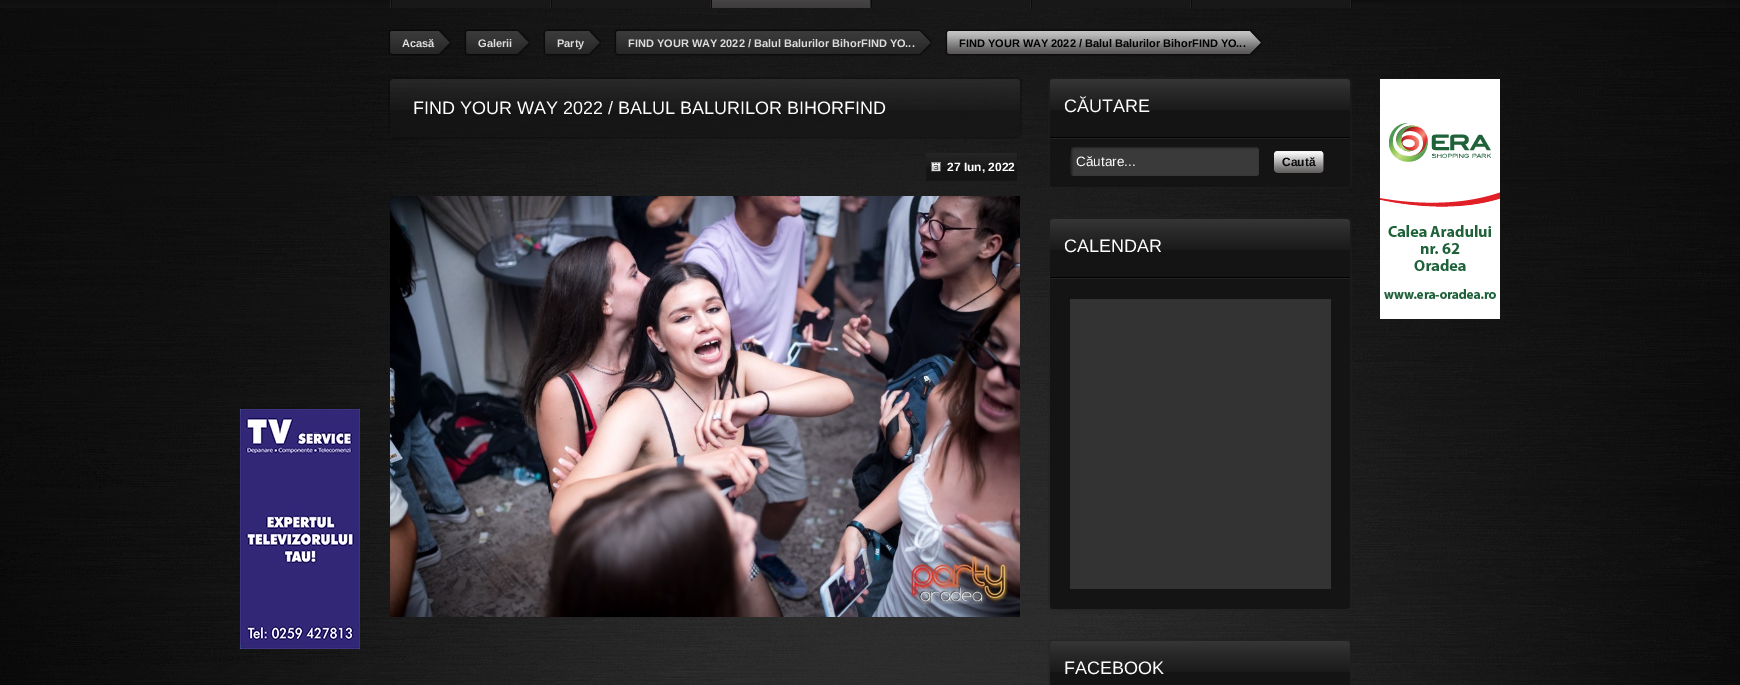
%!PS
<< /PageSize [1740 685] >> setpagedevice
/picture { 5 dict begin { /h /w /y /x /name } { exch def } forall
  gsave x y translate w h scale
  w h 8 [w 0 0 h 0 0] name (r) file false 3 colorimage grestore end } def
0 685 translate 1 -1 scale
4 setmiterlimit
1 setgray
0 0 1740 685 rectfill
(img1.rgb) 0 8 1740 677 picture
(img2.rgb) 0 0 1740 8 picture
(img3.rgb) 390 0 2 8 picture
(img3.rgb) 550 0 2 8 picture
0.094 setgray
392 0 158 8 rectfill
(img3.rgb) 710 0 2 8 picture
552 0 158 8 rectfill
(img3.rgb) 870 0 2 8 picture
(img4.rgb) 712 0 158 8 picture
(img3.rgb) 1030 0 2 8 picture
872 0 158 8 rectfill
(img3.rgb) 1190 0 2 8 picture
1032 0 158 8 rectfill
(img3.rgb) 1350 0 2 8 picture
1192 0 158 8 rectfill
(img5.rgb) 388 30 4 25 picture
(img6.rgb) 392 29 59 27 picture
/LiberationSans-Bold [11 0 0 -11 0 0] selectfont
0.867 setgray
402 47 moveto (Acasă) show
(img7.rgb) 464 30 4 25 picture
(img8.rgb) 468 29 62 27 picture
478 47 moveto (Galerii) show
(img9.rgb) 543 30 4 26 picture
(img10.rgb) 547 29 54 27 picture
557 47 moveto (Party) show
(img11.rgb) 614 29 4 27 picture
(img12.rgb) 618 29 314 27 picture
628 47 moveto (FIND YOUR WAY 2022 / Balul Balurilor BihorFIND YO...) show
(img13.rgb) 945 29 5 26 picture
(img14.rgb) 949 29 313 27 picture
0 setgray
959 47 moveto (FIND YOUR WAY 2022 / Balul Balurilor BihorFIND YO...) show
(img15.rgb) 388 79 5 56 picture
(img16.rgb) 393 77 629 62 picture
/LiberationSans-Regular [18 0 0 -18 0 0] selectfont
1 setgray
413 114 moveto (FIND YOUR WAY 2022 / BALUL BALURILOR BIHORFIND) show
(img17.rgb) 926 153 91 28 picture
(img18.rgb) 931 162 10 10 picture
/LiberationSans-Bold [12 0 0 -12 0 0] selectfont
947 171 moveto (27 Iun, 2022) show
(img19.rgb) 240 409 120 240 picture
(img20.rgb) 390 196 630 421 picture
(img21.rgb) 1048 77 304 62 picture
/LiberationSans-Regular [18 0 0 -18 0 0] selectfont
1064 112 moveto (CĂUTARE) show
(img22.rgb) 1049 139 303 50 picture
(img23.rgb) 1070 147 189 29 picture
/LiberationSans-Regular [13.5 0 0 -13.5 0 0] selectfont
1076 166 moveto (Căutare...) show
(img24.rgb) 1274 151 50 22 picture
/LiberationSans-Bold [12 0 0 -12 0 0] selectfont
0.027 setgray
1282 166 moveto (Caută) show
(img25.rgb) 1380 79 120 240 picture
(img26.rgb) 1050 217 302 62 picture
/LiberationSans-Regular [18 0 0 -18 0 0] selectfont
1 setgray
1064 252 moveto (CALENDAR) show
(img27.rgb) 1048 279 304 332 picture
0.2 setgray
1070 299 261 290 rectfill
(img28.rgb) 1048 638 302 47 picture
1 setgray
1064 674 moveto (FACEBOOK) show
showpage
